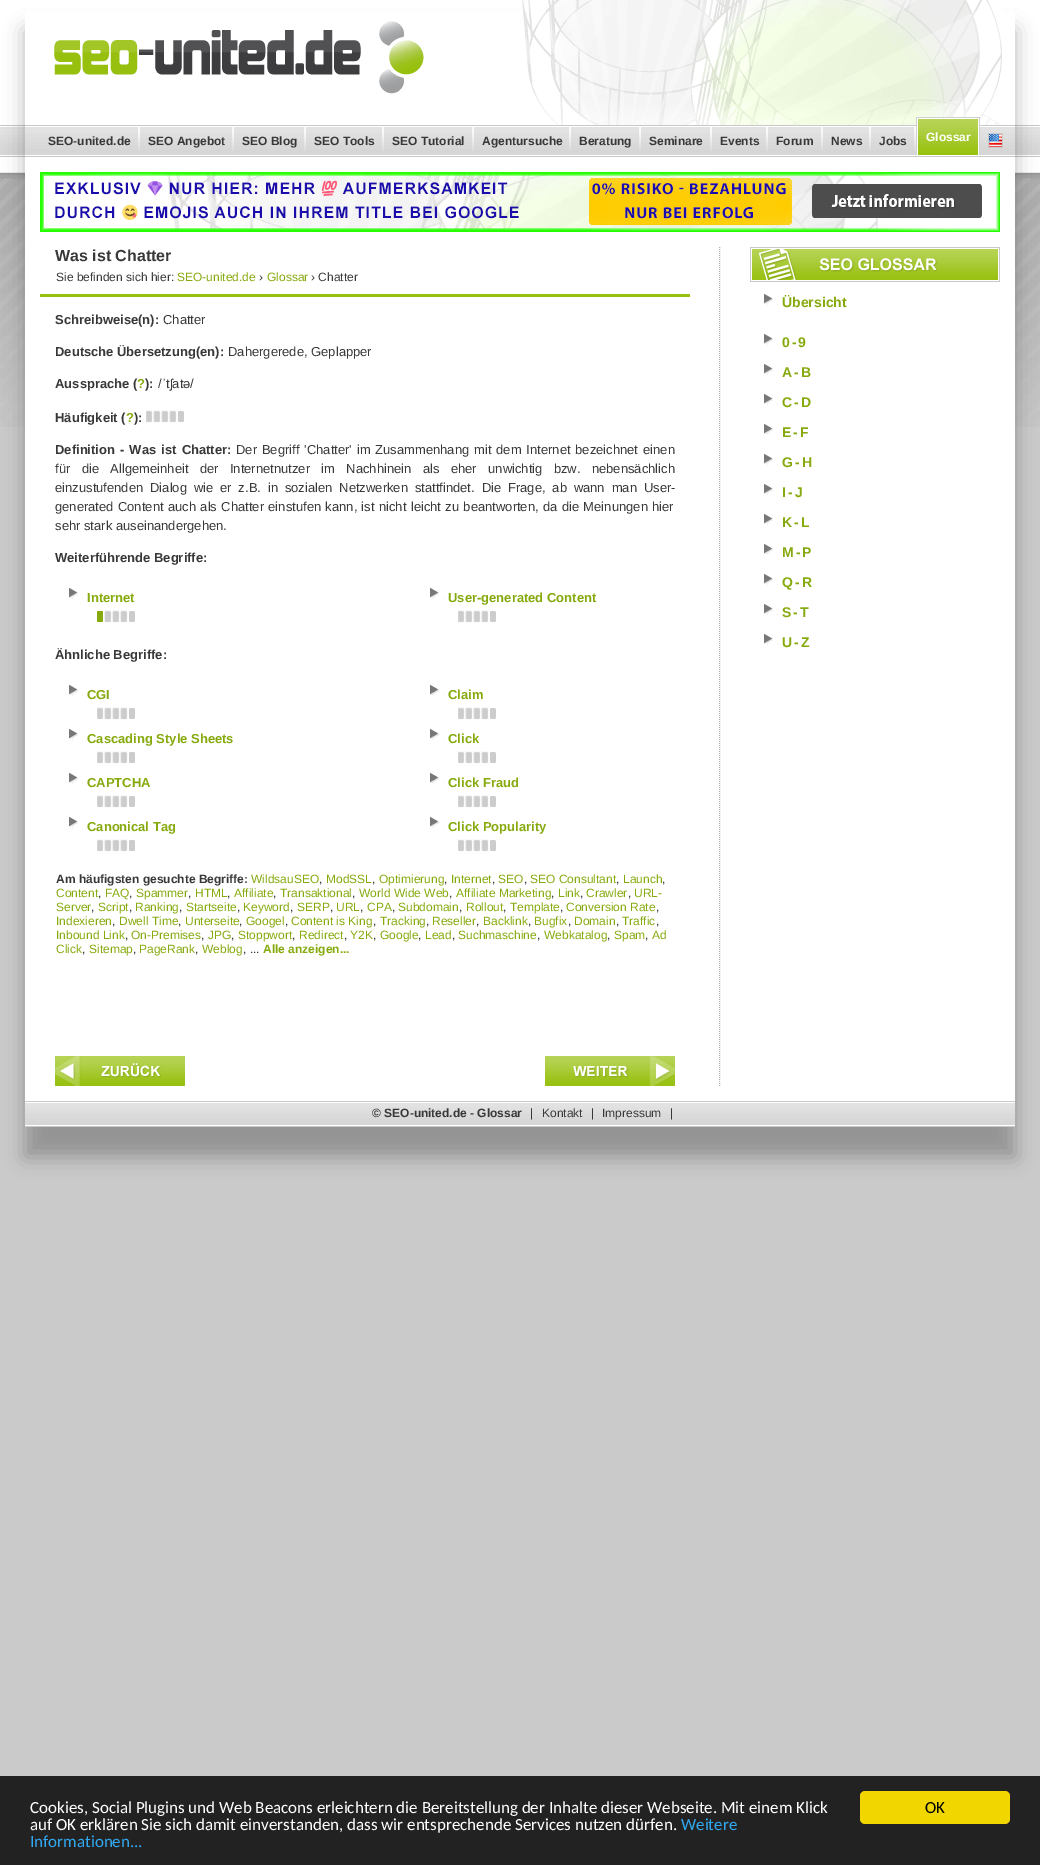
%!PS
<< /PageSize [1040 1865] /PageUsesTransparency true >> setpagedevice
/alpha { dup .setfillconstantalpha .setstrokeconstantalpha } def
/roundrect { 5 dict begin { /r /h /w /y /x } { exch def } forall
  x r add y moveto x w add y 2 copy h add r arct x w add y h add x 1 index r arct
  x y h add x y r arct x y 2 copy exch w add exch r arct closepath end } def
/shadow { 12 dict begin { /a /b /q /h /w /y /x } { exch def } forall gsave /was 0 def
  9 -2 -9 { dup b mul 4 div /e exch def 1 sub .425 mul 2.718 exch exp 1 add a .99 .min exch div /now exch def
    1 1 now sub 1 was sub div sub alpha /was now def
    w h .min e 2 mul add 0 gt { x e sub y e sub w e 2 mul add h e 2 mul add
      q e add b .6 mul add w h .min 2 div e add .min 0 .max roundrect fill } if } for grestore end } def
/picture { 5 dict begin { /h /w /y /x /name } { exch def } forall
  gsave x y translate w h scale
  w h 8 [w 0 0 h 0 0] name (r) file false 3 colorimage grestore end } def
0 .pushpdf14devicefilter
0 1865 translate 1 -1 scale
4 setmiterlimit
0.792 setgray
0 0 1040 1865 rectfill
(img1.rgb) 0 0 1040 427 picture
0.196 setgray
25 30 990 1127 0 10 0.35 shadow
1 setgray
25 12 990 1089 rectfill
(img2.rgb) 522 0 480 125 picture
(img3.rgb) 54 21 370 73 picture
(img4.rgb) 25 125 990 32 picture
(img5.rgb) 138 127 2 24 picture
/LiberationSans-Bold [12 0 0 -12 0 0] selectfont
0.22 setgray
48 145 moveto (SEO-united.de) show
(img5.rgb) 232 127 2 24 picture
148 145 moveto (SEO Angebot) show
(img5.rgb) 304 127 2 24 picture
242 145 moveto (SEO Blog) show
(img5.rgb) 382 127 2 24 picture
314 145 moveto (SEO Tools) show
(img5.rgb) 472 127 2 24 picture
392 145 moveto (SEO Tutorial) show
(img5.rgb) 569 127 2 24 picture
482 145 moveto (Agentursuche) show
(img5.rgb) 639 127 2 24 picture
579 145 moveto (Beratung) show
(img5.rgb) 710 127 2 24 picture
649 145 moveto (Seminare) show
(img5.rgb) 766 127 2 24 picture
720 145 moveto (Events) show
(img5.rgb) 821 127 2 24 picture
776 145 moveto (Forum) show
(img5.rgb) 869 127 2 24 picture
831 145 moveto (News) show
(img5.rgb) 914 127 2 24 picture
879 145 moveto (Jobs) show
1 setgray
917 118 62 37 rectfill
0.812 setgray
916 117 64 1 rectfill
979 117 1 38 rectfill
916 117 1 38 rectfill
(img6.rgb) 918 119 60 36 picture
1 setgray
926 141 moveto (Glossar) show
(img7.rgb) 988 133 15 15 picture
(img8.rgb) 40 172 960 60 picture
0.667 setgray
[1 1] 0 setdash
newpath 719.5 247 moveto 719.5 1086 lineto stroke
/LiberationSans-Bold [16 0 0 -16 0 0] selectfont
0.22 setgray
55 261 moveto (Was ist Chatter) show
/LiberationSans-Regular [12 0 0 -12 0 0] selectfont
56 281 moveto (Sie befinden sich hier:) show
0.525 0.667 0.055 setrgbcolor
177 281 moveto (SEO-united.de) show
0.22 setgray
259 281 moveto (›) show
0.525 0.667 0.055 setrgbcolor
267 281 moveto (Glossar) show
0.22 setgray
311 281 moveto (› Chatter) show
0.592 0.753 0.059 setrgbcolor
40 294 650 3 rectfill
/LiberationSans-Bold [13 0 0 -13 0 0] selectfont
0.22 setgray
55 324 moveto (Schreibweise\(n\):) show
/LiberationSans-Regular [13 0 0 -13 0 0] selectfont
163 324 moveto (Chatter) show
/LiberationSans-Bold [13 0 0 -13 0 0] selectfont
55 356 moveto (Deutsche Übersetzung\(en\):) show
/LiberationSans-Regular [13 0 0 -13 0 0] selectfont
228 356 moveto (Dahergerede, Geplapper) show
/LiberationSans-Bold [13 0 0 -13 0 0] selectfont
55 388 moveto (Aussprache \() show
0.525 0.667 0.055 setrgbcolor
137 388 moveto (?) show
0.22 setgray
145 388 moveto (\):) show
/LiberationSans-Regular [13 0 0 -13 0 0] selectfont
158 388 moveto (/ˈtʃatə/) show
/LiberationSans-Bold [13 0 0 -13 0 0] selectfont
55 422 moveto (Häufigkeit \() show
0.525 0.667 0.055 setrgbcolor
126 422 moveto (?) show
0.22 setgray
134 422 moveto (\):) show
(img9.rgb) 146 410 38 13 picture
55 454 moveto 1.5 0 32 (Definition - Was ist Chatter:) widthshow
/LiberationSans-Regular [13 0 0 -13 0 0] selectfont
236 454 moveto 1.25 0 32 (Der Begriff 'Chatter' im Zusammenhang mit dem Internet bezeichnet einen) widthshow
55 473 moveto 7.75 0 32 (für die Allgemeinheit der Internetnutzer im Nachhinein als eher unwichtig bzw. nebensächlich) widthshow
55 492 moveto 3.25 0 32 (einzustufenden Dialog wie er z.B. in sozialen Netzwerken stattfindet. Die Frage, ab wann man User-) widthshow
55 511 moveto 0.75 0 32 (generated Content auch als Chatter einstufen kann, ist nicht leicht zu beantworten, da die Meinungen hier) widthshow
55 530 moveto (sehr stark auseinandergehen.) show
/LiberationSans-Bold [13 0 0 -13 0 0] selectfont
55 562 moveto (Weiterführende Begriffe:) show
(img10.rgb) 69 588 14 11 picture
0.525 0.667 0.055 setrgbcolor
87 602 moveto (Internet) show
(img11.rgb) 97 610 38 13 picture
(img10.rgb) 430 588 14 11 picture
448 602 moveto (User-generated Content) show
(img9.rgb) 458 610 38 13 picture
0.22 setgray
55 659 moveto (Ähnliche Begriffe:) show
(img10.rgb) 69 685 14 11 picture
0.525 0.667 0.055 setrgbcolor
87 699 moveto (CGI) show
(img9.rgb) 97 707 38 13 picture
(img10.rgb) 69 729 14 11 picture
87 743 moveto (Cascading Style Sheets) show
(img9.rgb) 97 751 38 13 picture
(img10.rgb) 69 773 14 11 picture
87 787 moveto (CAPTCHA) show
(img9.rgb) 97 795 38 13 picture
(img10.rgb) 69 817 14 11 picture
87 831 moveto (Canonical Tag) show
(img9.rgb) 97 839 38 13 picture
(img10.rgb) 430 685 14 11 picture
448 699 moveto (Claim) show
(img9.rgb) 458 707 38 13 picture
(img10.rgb) 430 729 14 11 picture
448 743 moveto (Click) show
(img9.rgb) 458 751 38 13 picture
(img10.rgb) 430 773 14 11 picture
448 787 moveto (Click Fraud) show
(img9.rgb) 458 795 38 13 picture
(img10.rgb) 430 817 14 11 picture
448 831 moveto (Click Popularity) show
(img9.rgb) 458 839 38 13 picture
/LiberationSans-Bold [12 0 0 -12 0 0] selectfont
0.22 setgray
56 883 moveto (Am häufigsten gesuchte Begriffe:) show
/LiberationSans-Regular [12 0 0 -12 0 0] selectfont
0.525 0.667 0.055 setrgbcolor
251 883 moveto (WildsauSEO) show
0.22 setgray
319 883 moveto (,) show
0.525 0.667 0.055 setrgbcolor
326 883 moveto (ModSSL) show
0.22 setgray
372 883 moveto (,) show
0.525 0.667 0.055 setrgbcolor
379 883 moveto (Optimierung) show
0.22 setgray
444 883 moveto (,) show
0.525 0.667 0.055 setrgbcolor
451 883 moveto (Internet) show
0.22 setgray
492 883 moveto (,) show
0.525 0.667 0.055 setrgbcolor
498 883 moveto (SEO) show
0.22 setgray
524 883 moveto (,) show
0.525 0.667 0.055 setrgbcolor
530 883 moveto (SEO Consultant) show
0.22 setgray
616 883 moveto (,) show
0.525 0.667 0.055 setrgbcolor
623 883 moveto (Launch) show
0.22 setgray
662 883 moveto (,) show
0.525 0.667 0.055 setrgbcolor
56 897 moveto (Content) show
0.22 setgray
98 897 moveto (,) show
0.525 0.667 0.055 setrgbcolor
105 897 moveto (FAQ) show
0.22 setgray
129 897 moveto (,) show
0.525 0.667 0.055 setrgbcolor
136 897 moveto (Spammer) show
0.22 setgray
188 897 moveto (,) show
0.525 0.667 0.055 setrgbcolor
195 897 moveto (HTML) show
0.22 setgray
227 897 moveto (,) show
0.525 0.667 0.055 setrgbcolor
234 897 moveto (Affiliate) show
0.22 setgray
273 897 moveto (,) show
0.525 0.667 0.055 setrgbcolor
280 897 moveto (Transaktional) show
0.22 setgray
352 897 moveto (,) show
0.525 0.667 0.055 setrgbcolor
359 897 moveto (World Wide Web) show
0.22 setgray
449 897 moveto (,) show
0.525 0.667 0.055 setrgbcolor
456 897 moveto (Affiliate Marketing) show
0.22 setgray
551 897 moveto (,) show
0.525 0.667 0.055 setrgbcolor
558 897 moveto (Link) show
0.22 setgray
580 897 moveto (,) show
0.525 0.667 0.055 setrgbcolor
586 897 moveto (Crawler) show
0.22 setgray
628 897 moveto (,) show
0.525 0.667 0.055 setrgbcolor
634 897 moveto (URL-) show
56 911 moveto (Server) show
0.22 setgray
91 911 moveto (,) show
0.525 0.667 0.055 setrgbcolor
98 911 moveto (Script) show
0.22 setgray
129 911 moveto (,) show
0.525 0.667 0.055 setrgbcolor
135 911 moveto (Ranking) show
0.22 setgray
179 911 moveto (,) show
0.525 0.667 0.055 setrgbcolor
186 911 moveto (Startseite) show
0.22 setgray
237 911 moveto (,) show
0.525 0.667 0.055 setrgbcolor
243 911 moveto (Keyword) show
0.22 setgray
290 911 moveto (,) show
0.525 0.667 0.055 setrgbcolor
297 911 moveto (SERP) show
0.22 setgray
330 911 moveto (,) show
0.525 0.667 0.055 setrgbcolor
336 911 moveto (URL) show
0.22 setgray
360 911 moveto (,) show
0.525 0.667 0.055 setrgbcolor
367 911 moveto (CPA) show
0.22 setgray
392 911 moveto (,) show
0.525 0.667 0.055 setrgbcolor
398 911 moveto (Subdomain) show
0.22 setgray
459 911 moveto (,) show
0.525 0.667 0.055 setrgbcolor
466 911 moveto (Rollout) show
0.22 setgray
503 911 moveto (,) show
0.525 0.667 0.055 setrgbcolor
510 911 moveto (Template) show
0.22 setgray
560 911 moveto (,) show
0.525 0.667 0.055 setrgbcolor
566 911 moveto (Conversion Rate) show
0.22 setgray
656 911 moveto (,) show
0.525 0.667 0.055 setrgbcolor
56 925 moveto (Indexieren) show
0.22 setgray
112 925 moveto (,) show
0.525 0.667 0.055 setrgbcolor
119 925 moveto (Dwell Time) show
0.22 setgray
178 925 moveto (,) show
0.525 0.667 0.055 setrgbcolor
185 925 moveto (Unterseite) show
0.22 setgray
239 925 moveto (,) show
0.525 0.667 0.055 setrgbcolor
246 925 moveto (Googel) show
0.22 setgray
285 925 moveto (,) show
0.525 0.667 0.055 setrgbcolor
291 925 moveto (Content is King) show
0.22 setgray
373 925 moveto (,) show
0.525 0.667 0.055 setrgbcolor
380 925 moveto (Tracking) show
0.22 setgray
426 925 moveto (,) show
0.525 0.667 0.055 setrgbcolor
432 925 moveto (Reseller) show
0.22 setgray
476 925 moveto (,) show
0.525 0.667 0.055 setrgbcolor
483 925 moveto (Backlink) show
0.22 setgray
528 925 moveto (,) show
0.525 0.667 0.055 setrgbcolor
534 925 moveto (Bugfix) show
0.22 setgray
568 925 moveto (,) show
0.525 0.667 0.055 setrgbcolor
574 925 moveto (Domain) show
0.22 setgray
616 925 moveto (,) show
0.525 0.667 0.055 setrgbcolor
622 925 moveto (Traffic) show
0.22 setgray
656 925 moveto (,) show
0.525 0.667 0.055 setrgbcolor
56 939 moveto (Inbound Link) show
0.22 setgray
125 939 moveto (,) show
0.525 0.667 0.055 setrgbcolor
131 939 moveto (On-Premises) show
0.22 setgray
201 939 moveto (,) show
0.525 0.667 0.055 setrgbcolor
208 939 moveto (JPG) show
0.22 setgray
231 939 moveto (,) show
0.525 0.667 0.055 setrgbcolor
238 939 moveto (Stoppwort) show
0.22 setgray
292 939 moveto (,) show
0.525 0.667 0.055 setrgbcolor
299 939 moveto (Redirect) show
0.22 setgray
344 939 moveto (,) show
0.525 0.667 0.055 setrgbcolor
350 939 moveto (Y2K) show
0.22 setgray
373 939 moveto (,) show
0.525 0.667 0.055 setrgbcolor
380 939 moveto (Google) show
0.22 setgray
418 939 moveto (,) show
0.525 0.667 0.055 setrgbcolor
425 939 moveto (Lead) show
0.22 setgray
452 939 moveto (,) show
0.525 0.667 0.055 setrgbcolor
458 939 moveto (Suchmaschine) show
0.22 setgray
537 939 moveto (,) show
0.525 0.667 0.055 setrgbcolor
544 939 moveto (Webkatalog) show
0.22 setgray
607 939 moveto (,) show
0.525 0.667 0.055 setrgbcolor
614 939 moveto (Spam) show
0.22 setgray
645 939 moveto (,) show
0.525 0.667 0.055 setrgbcolor
652 939 moveto (Ad) show
56 953 moveto (Click) show
0.22 setgray
82 953 moveto (,) show
0.525 0.667 0.055 setrgbcolor
89 953 moveto (Sitemap) show
0.22 setgray
133 953 moveto (,) show
0.525 0.667 0.055 setrgbcolor
139 953 moveto (PageRank) show
0.22 setgray
195 953 moveto (,) show
0.525 0.667 0.055 setrgbcolor
202 953 moveto (Weblog) show
0.22 setgray
243 953 moveto (, ...) show
/LiberationSans-Bold [12 0 0 -12 0 0] selectfont
0.525 0.667 0.055 setrgbcolor
263 953 moveto (Alle anzeigen...) show
(img12.rgb) 55 1056 130 30 picture
(img13.rgb) 545 1056 130 30 picture
(img14.rgb) 750 247 250 35 picture
(img10.rgb) 764 294 14 11 picture
/LiberationSans-Bold [14 0 0 -14 0 0] selectfont
782 307 moveto (Übersicht) show
(img10.rgb) 764 334 14 11 picture
782 347 moveto 2 0 (0-9) ashow
(img10.rgb) 764 364 14 11 picture
782 377 moveto 2 0 (A-B) ashow
(img10.rgb) 764 394 14 11 picture
782 407 moveto 2 0 (C-D) ashow
(img10.rgb) 764 424 14 11 picture
782 437 moveto 2 0 (E-F) ashow
(img10.rgb) 764 454 14 11 picture
782 467 moveto 2 0 (G-H) ashow
(img10.rgb) 764 484 14 11 picture
782 497 moveto 2 0 (I-J) ashow
(img10.rgb) 764 514 14 11 picture
782 527 moveto 2 0 (K-L) ashow
(img10.rgb) 764 544 14 11 picture
782 557 moveto 2 0 (M-P) ashow
(img10.rgb) 764 574 14 11 picture
782 587 moveto 2 0 (Q-R) ashow
(img10.rgb) 764 604 14 11 picture
782 617 moveto 2 0 (S-T) ashow
(img10.rgb) 764 634 14 11 picture
782 647 moveto 2 0 (U-Z) ashow
(img15.rgb) 25 1101 990 26 picture
/LiberationSans-Bold [12 0 0 -12 0 0] selectfont
0.22 setgray
372 1117 moveto (© SEO-united.de - Glossar) show
/LiberationSans-Regular [12 0 0 -12 0 0] selectfont
530 1117 moveto (|) show
542 1117 moveto (Kontakt) show
591 1117 moveto (|) show
602 1117 moveto (Impressum) show
670 1117 moveto (|) show
0.133 setgray
0 1776 1040 89 rectfill
/Carlito-Regular [17 0 0 -17 0 0] selectfont
1 setgray
30 1813 moveto (Cookies, Social Plugins und Web Beacons erleichtern die Bereitstellung der Inhalte dieser Webseite. Mit einem Klick) show
30 1830 moveto (auf OK erklären Sie sich damit einverstanden, dass wir entsprechende Services nutzen dürfen.) show
0.192 0.659 0.941 setrgbcolor
681 1830 moveto (Weitere) show
30 1847 moveto (Informationen...) show
0.945 0.839 0 setrgbcolor
860 1791 150 33 5 roundrect fill
0 setgray
925 1813 moveto (OK) show
.poppdf14devicefilter showpage
